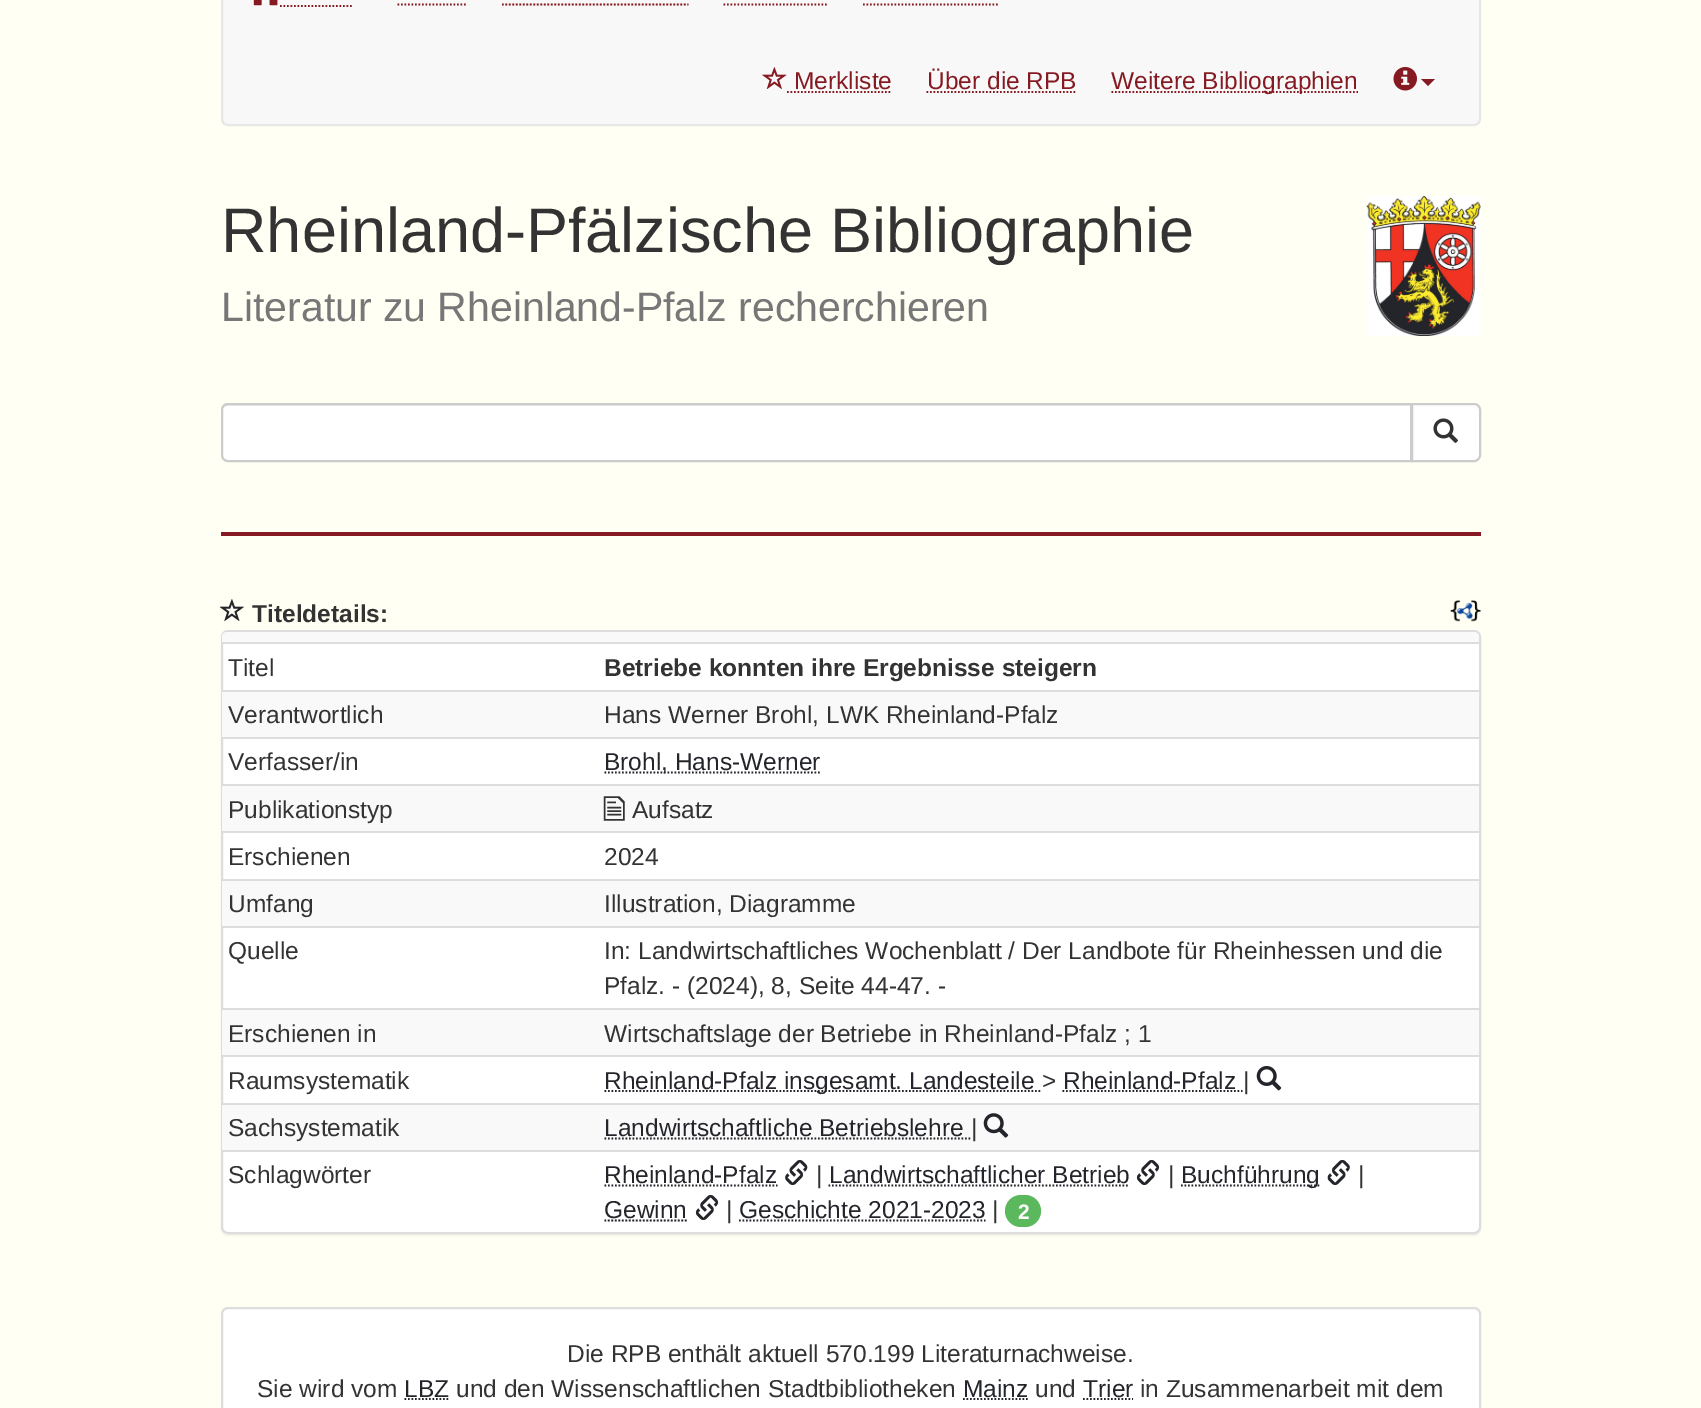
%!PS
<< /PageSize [1701 1408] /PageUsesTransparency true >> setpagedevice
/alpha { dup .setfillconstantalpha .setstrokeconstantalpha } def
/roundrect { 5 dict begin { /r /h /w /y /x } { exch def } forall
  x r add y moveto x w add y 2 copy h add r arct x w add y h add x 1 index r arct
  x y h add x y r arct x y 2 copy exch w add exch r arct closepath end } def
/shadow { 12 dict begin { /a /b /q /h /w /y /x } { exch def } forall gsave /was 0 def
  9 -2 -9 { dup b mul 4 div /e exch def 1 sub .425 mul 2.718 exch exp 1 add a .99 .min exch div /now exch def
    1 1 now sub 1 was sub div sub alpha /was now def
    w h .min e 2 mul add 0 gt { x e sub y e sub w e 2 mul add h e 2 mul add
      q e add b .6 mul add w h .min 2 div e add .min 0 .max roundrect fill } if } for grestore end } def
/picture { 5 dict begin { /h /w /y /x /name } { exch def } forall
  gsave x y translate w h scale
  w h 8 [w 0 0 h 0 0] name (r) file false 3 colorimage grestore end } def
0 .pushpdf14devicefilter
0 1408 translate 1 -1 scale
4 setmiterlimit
1 1 0.953 setrgbcolor
0 0 1701 1408 rectfill
0.973 setgray
222 -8 1258 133 6 roundrect gsave fill grestore
0.906 setgray
2 setlinewidth
stroke
(img1.rgb) 253 0 25 6 picture
0.525 0.102 0.133 setrgbcolor
1.8 setlinewidth
[1.75 1.75] 0 setdash
newpath 280 6 moveto 353.5 6 lineto stroke
newpath 397.5 4.5 moveto 467 4.5 lineto stroke
newpath 502 4.5 moveto 688.5 4.5 lineto stroke
newpath 723.5 4.5 moveto 828 4.5 lineto stroke
newpath 863 4.5 moveto 999.5 4.5 lineto stroke
(img2.rgb) 762 67 25 22 picture
/LiberationSans-Regular [24.5 0 0 -24.5 0 0] selectfont
794 89 moveto (Merkliste) show
newpath 787 92 moveto 891.5 92 lineto stroke
927 89 moveto (Über die RPB) show
newpath 926.5 92 moveto 1076.5 92 lineto stroke
newpath 1111.5 92 moveto 1358 92 lineto stroke
1111 89 moveto (Weitere Bibliographien) show
(img3.rgb) 1393 67 24 24 picture
newpath 1421 79 moveto 1435 79 lineto 1428 86 lineto closepath fill
/LiberationSans-Regular [63 0 0 -63 0 0] selectfont
0.2 setgray
221 252 moveto (Rheinland-Pfälzische Bibliographie) show
/LiberationSans-Regular [41 0 0 -41 0 0] selectfont
0.467 setgray
221 321 moveto (Literatur zu Rheinland-Pfalz recherchieren) show
(img4.rgb) 1366 196 115 140 picture
1 setgray
newpath 228 403 moveto 1412 403 lineto 1412 462 lineto 228 462 lineto 224 462 221 459 221 455 curveto 221 410 lineto 221 406 224 403 228 403 curveto closepath fill
0.925 setgray
newpath 228 406 moveto 1410 406 lineto 1410 460 lineto 1411 460 lineto 1411 404 lineto 227 404 lineto 224 404 222 406 222 409 curveto 222 411 lineto 222 408 225 406 228 406 curveto closepath fill
0.8 setgray
2 setlinewidth
[] 0 setdash
newpath 228 404 moveto 1411 404 lineto 1411 461 lineto 228 461 lineto 224.5 461 222 458.5 222 455 curveto 222 410 lineto 222 406.5 224.5 404 228 404 curveto closepath stroke
1 setgray
newpath 1412 404 moveto 1474 404 lineto 1477.5 404 1480 406.5 1480 410 curveto 1480 455 lineto 1480 458.5 1477.5 461 1474 461 curveto 1412 461 lineto closepath gsave fill grestore
0.8 setgray
stroke
(img5.rgb) 1433 418 25 25 picture
0.525 0.102 0.133 setrgbcolor
221 532 1260 4 rectfill
(img6.rgb) 219 599 25 22 picture
/LiberationSans-Bold [24.5 0 0 -24.5 0 0] selectfont
0.2 setgray
252 622 moveto (Titeldetails:) show
(img7.rgb) 1450 600 31 22 picture
0 setgray
221 632 1260 604 7 1 0.05 shadow
1 setgray
222 631 1258 602 6 roundrect gsave fill grestore
0.867 setgray
stroke
0.976 setgray
newpath 227 632 moveto 1474 632 lineto 1477 632 1479 634 1479 637 curveto 1479 644 lineto 222 644 lineto 222 637 lineto 222 634 224 632 227 632 curveto closepath fill
/LiberationSans-Regular [24.5 0 0 -24.5 0 0] selectfont
0.2 setgray
228 676 moveto (Titel) show
0.867 setgray
222 642 1259 2 rectfill
/LiberationSans-Bold [24.5 0 0 -24.5 0 0] selectfont
0.2 setgray
604 676 moveto (Betriebe konnten ihre Ergebnisse steigern) show
0.976 setgray
222 692 1257 45 rectfill
/LiberationSans-Regular [24.5 0 0 -24.5 0 0] selectfont
0.2 setgray
228 723 moveto (Verantwortlich) show
0.867 setgray
222 690 1259 2 rectfill
0.2 setgray
604 723 moveto (Hans Werner Brohl, LWK Rheinland-Pfalz) show
228 770 moveto (Verfasser/in) show
0.867 setgray
222 737 1259 2 rectfill
0.141 0.145 0.169 setrgbcolor
1.8 setlinewidth
[1.75 1.75] 0 setdash
newpath 604.5 772.5 moveto 821 772.5 lineto stroke
604 770 moveto (Brohl, Hans-Werner) show
0.976 setgray
222 786 1257 45 rectfill
0.2 setgray
228 818 moveto (Publikationstyp) show
0.867 setgray
222 784 1259 2 rectfill
(img8.rgb) 603 796 22 25 picture
0.2 setgray
632 818 moveto (Aufsatz) show
228 865 moveto (Erschienen) show
0.867 setgray
222 831 1259 2 rectfill
0.2 setgray
604 865 moveto (2024) show
0.976 setgray
222 881 1257 45 rectfill
0.2 setgray
228 912 moveto (Umfang) show
0.867 setgray
222 879 1259 2 rectfill
0.2 setgray
604 912 moveto (Illustration, Diagramme) show
228 959 moveto (Quelle) show
0.867 setgray
222 926 1259 2 rectfill
0.2 setgray
604 959 moveto (In: Landwirtschaftliches Wochenblatt / Der Landbote für Rheinhessen und die) show
604 994 moveto (Pfalz. - \(2024\), 8, Seite 44-47. -) show
0.976 setgray
222 1010 1257 45 rectfill
0.2 setgray
228 1042 moveto (Erschienen in) show
0.867 setgray
222 1008 1259 2 rectfill
0.2 setgray
604 1042 moveto (Wirtschaftslage der Betriebe in Rheinland-Pfalz ; 1) show
228 1089 moveto (Raumsystematik) show
0.867 setgray
222 1055 1259 2 rectfill
0.141 0.145 0.169 setrgbcolor
newpath 604.5 1091 moveto 1041.5 1091 lineto stroke
604 1089 moveto (Rheinland-Pfalz insgesamt. Landesteile) show
0.2 setgray
1042 1089 moveto (>) show
0.141 0.145 0.169 setrgbcolor
1063 1089 moveto (Rheinland-Pfalz) show
newpath 1062.5 1091 moveto 1242.5 1091 lineto stroke
0.2 setgray
1243 1089 moveto (|) show
(img9.rgb) 1256 1065 26 26 picture
0.976 setgray
222 1105 1257 45 rectfill
0.2 setgray
228 1136 moveto (Sachsystematik) show
0.867 setgray
222 1103 1259 2 rectfill
0.141 0.145 0.169 setrgbcolor
604 1136 moveto (Landwirtschaftliche Betriebslehre) show
newpath 604.5 1138.5 moveto 971 1138.5 lineto stroke
0.2 setgray
971 1136 moveto (|) show
(img10.rgb) 983 1113 26 25 picture
228 1183 moveto (Schlagwörter) show
0.867 setgray
222 1150 1259 2 rectfill
0.141 0.145 0.169 setrgbcolor
604 1183 moveto (Rheinland-Pfalz) show
newpath 604.5 1185.5 moveto 777.5 1185.5 lineto stroke
(img11.rgb) 785 1160 23 25 picture
0.2 setgray
816 1183 moveto (|) show
0.141 0.145 0.169 setrgbcolor
829 1183 moveto (Landwirtschaftlicher Betrieb) show
newpath 828.5 1185.5 moveto 1129.5 1185.5 lineto stroke
(img12.rgb) 1136 1160 24 25 picture
0.2 setgray
1168 1183 moveto (|) show
0.141 0.145 0.169 setrgbcolor
newpath 1181 1185.5 moveto 1320 1185.5 lineto stroke
1181 1183 moveto (Buchführung) show
(img13.rgb) 1327 1160 23 25 picture
0.2 setgray
1358 1183 moveto (|) show
0.141 0.145 0.169 setrgbcolor
604 1218 moveto (Gewinn) show
newpath 604.5 1220.5 moveto 687.5 1220.5 lineto stroke
(img12.rgb) 695 1195 24 25 picture
0.2 setgray
726 1218 moveto (|) show
0.141 0.145 0.169 setrgbcolor
739 1218 moveto (Geschichte 2021-2023) show
newpath 739 1220.5 moveto 985.5 1220.5 lineto stroke
0.2 setgray
992 1218 moveto (|) show
0.361 0.722 0.361 setrgbcolor
1005 1195 36 32 16 roundrect fill
/LiberationSans-Bold [21 0 0 -21 0 0] selectfont
1 setgray
1018 1219 moveto (2) show
222 1308 1258 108 6 roundrect gsave fill grestore
0.867 setgray
2 setlinewidth
[] 0 setdash
stroke
/LiberationSans-Regular [24.5 0 0 -24.5 0 0] selectfont
0.2 setgray
567 1362 moveto (Die RPB enthält aktuell 570.199 Literaturnachweise.) show
257 1397 moveto (Sie wird vom) show
0.141 0.145 0.169 setrgbcolor
404 1397 moveto (LBZ) show
1.8 setlinewidth
[1.75 1.75] 0 setdash
newpath 404.5 1399 moveto 449.5 1399 lineto stroke
0.2 setgray
456 1397 moveto (und den Wissenschaftlichen Stadtbibliotheken) show
0.141 0.145 0.169 setrgbcolor
963 1397 moveto (Mainz) show
newpath 963 1399 moveto 1028.5 1399 lineto stroke
0.2 setgray
1035 1397 moveto (und) show
0.141 0.145 0.169 setrgbcolor
1083 1397 moveto (Trier) show
newpath 1083 1399 moveto 1133 1399 lineto stroke
0.2 setgray
1140 1397 moveto (in Zusammenarbeit mit dem) show
.poppdf14devicefilter showpage
